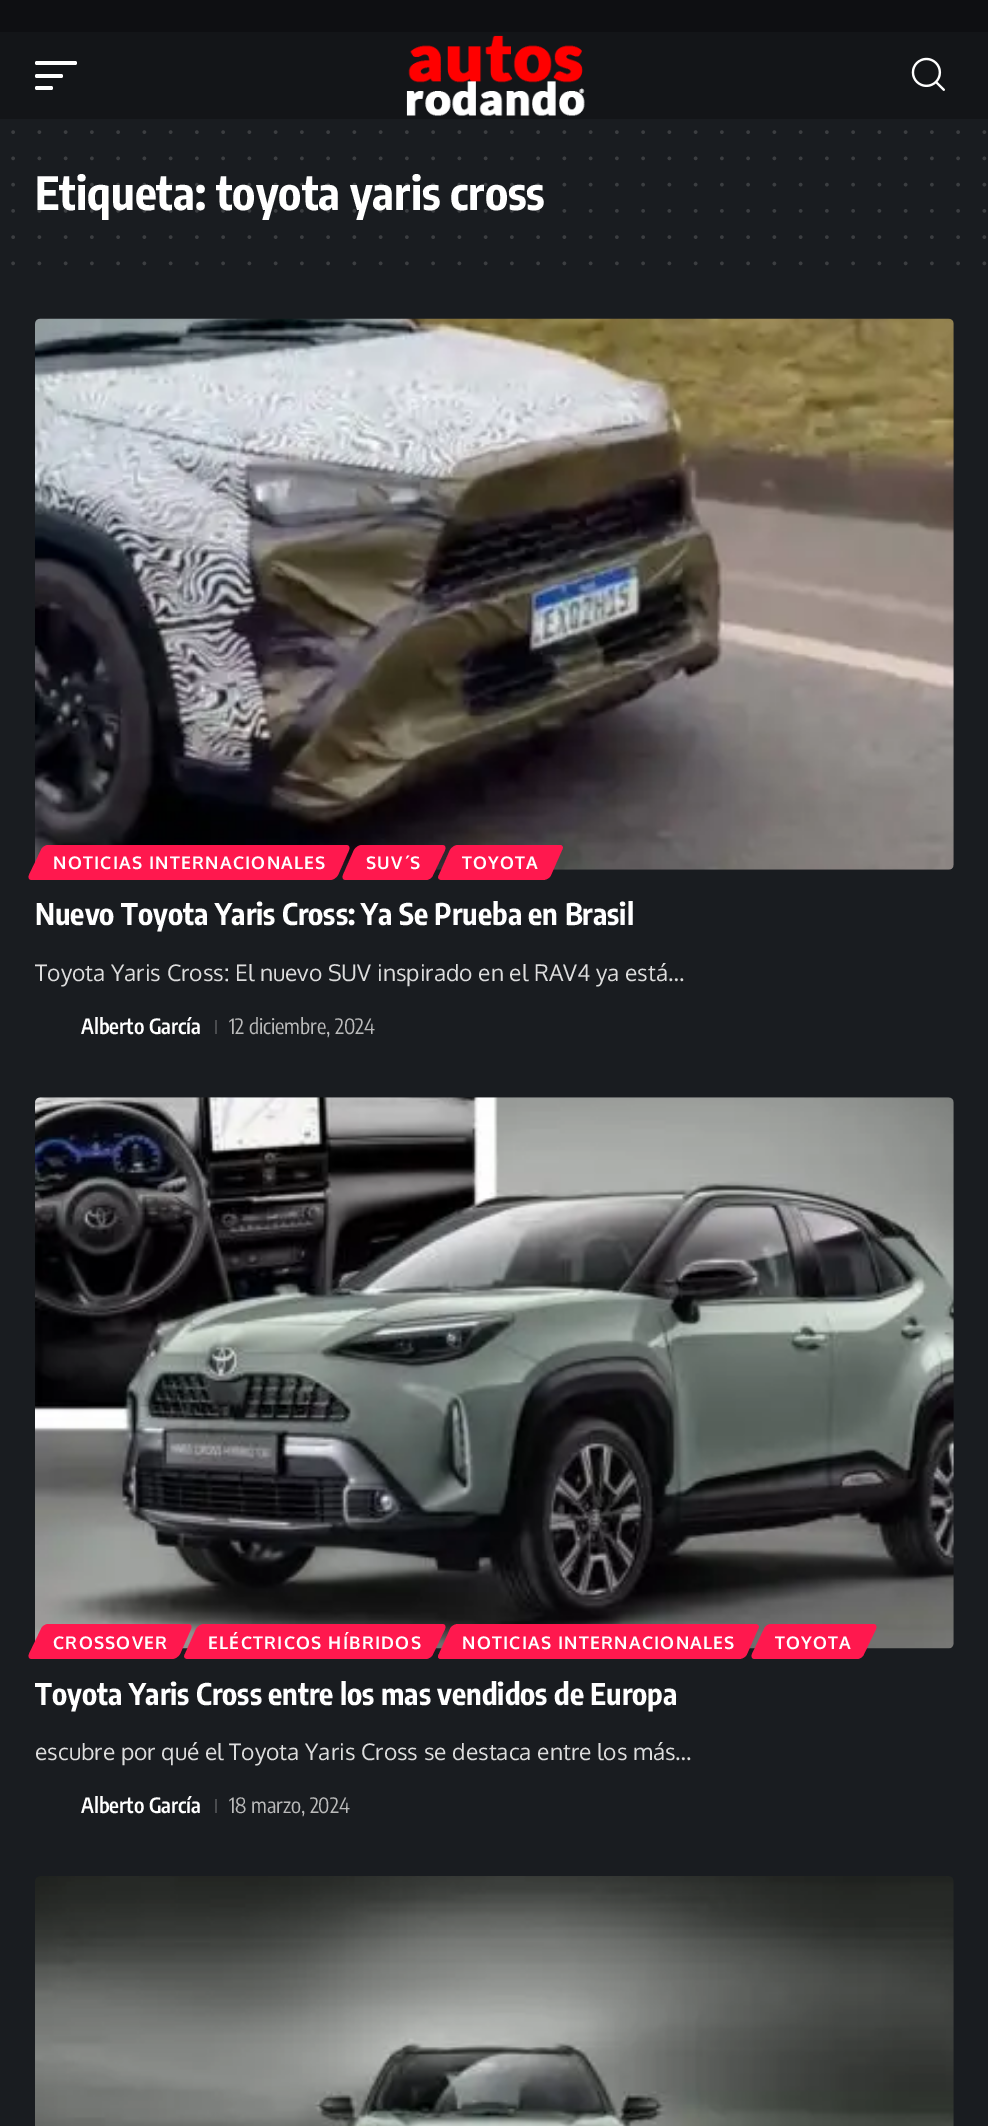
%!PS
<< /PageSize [988 2126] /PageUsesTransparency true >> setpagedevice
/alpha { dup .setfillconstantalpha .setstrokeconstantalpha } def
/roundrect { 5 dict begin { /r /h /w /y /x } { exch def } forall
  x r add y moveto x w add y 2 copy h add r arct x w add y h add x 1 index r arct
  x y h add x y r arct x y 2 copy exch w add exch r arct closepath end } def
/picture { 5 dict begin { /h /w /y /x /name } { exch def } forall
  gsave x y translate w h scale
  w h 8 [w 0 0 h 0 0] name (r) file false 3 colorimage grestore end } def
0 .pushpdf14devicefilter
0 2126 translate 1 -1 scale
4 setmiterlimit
0.098 0.11 0.125 setrgbcolor
0 0 988 2126 rectfill
0.055 0.059 0.071 setrgbcolor
0 0 988 32 rectfill
0.075 0.082 0.094 setrgbcolor
0 32 988 87 rectfill
1 setgray
35 61 42 4 2 roundrect fill
35 74 28 4 2 roundrect fill
35 86 18 4 2 roundrect fill
(img1.rgb) 406 35 179 81 picture
(img2.rgb) 911 57 34 34 picture
0.235 0.243 0.255 setrgbcolor
3.5 setlinewidth
1 setlinecap
[0 26.25] 0 setdash
newpath 13.1 132.1 moveto 984.7 132.1 lineto stroke
newpath 13.1 158.4 moveto 984.7 158.4 lineto stroke
/EncodeSansCondensed-Bold [45.5 0 0 -45.5 0 0] selectfont
1 setgray
35 210 moveto (Etiqueta: toyota yaris cross) show
0.15 alpha
newpath 13.1 184.6 moveto 984.7 184.6 lineto stroke
newpath 13.1 210.9 moveto 984.7 210.9 lineto stroke
1 alpha
0.235 0.243 0.255 setrgbcolor
newpath 13.1 237.1 moveto 984.7 237.1 lineto stroke
newpath 13.1 263.4 moveto 984.7 263.4 lineto stroke
(img3.rgb) 35 318 919 552 picture
1 0.094 0.306 setrgbcolor
newpath 48 845 moveto 346 845 lineto 349 845 350 847 349 850 curveto 338 875 lineto 336 878 333 880 330 880 curveto 32 880 lineto 29 880 28 878 29 875 curveto 41 850 lineto 42 847 46 845 48 845 curveto closepath fill
/Oxygen-Bold [17.5 0 0 -17.5 0 0] selectfont
1 setgray
53 869 moveto 1.25 0 (NOTICIAS INTERNACIONALES) ashow
1 0.094 0.306 setrgbcolor
newpath 362 845 moveto 442 845 lineto 445 845 446 847 445 850 curveto 433 875 lineto 432 878 429 880 426 880 curveto 346 880 lineto 343 880 342 878 343 875 curveto 354 850 lineto 356 847 359 845 362 845 curveto closepath fill
1 setgray
366 869 moveto 1.25 0 (SUV´S) ashow
1 0.094 0.306 setrgbcolor
newpath 458 845 moveto 560 845 lineto 562 845 564 847 562 850 curveto 551 875 lineto 550 878 546 880 543 880 curveto 442 880 lineto 439 880 437 878 439 875 curveto 450 850 lineto 452 847 455 845 458 845 curveto closepath fill
1 setgray
462 869 moveto 1.25 0 (TOYOTA) ashow
/EncodeSansCondensed-Bold [29.75 0 0 -29.75 0 0] selectfont
35 925 moveto (Nuevo Toyota Yaris Cross: Ya Se Prueba en Brasil) show
/Oxygen-Regular [22.75 0 0 -22.75 0 0] selectfont
0.867 setgray
35 981 moveto (Toyota Yaris Cross: El nuevo SUV inspirado en el RAV4 ya está…) show
/EncodeSansCondensed-SemiBold [21 0 0 -21 0 0] selectfont
1 setgray
81 1034 moveto (Alberto García) show
0.29 0.298 0.31 setrgbcolor
215 1020 2 14 rectfill
/EncodeSansCondensed-Regular [21 0 0 -21 0 0] selectfont
0.733 setgray
229 1034 moveto (12 diciembre, 2024) show
(img4.rgb) 35 1097 919 552 picture
1 0.094 0.306 setrgbcolor
newpath 48 1624 moveto 188 1624 lineto 191 1624 192 1626 191 1629 curveto 180 1654 lineto 178 1657 175 1659 172 1659 curveto 32 1659 lineto 29 1659 28 1657 29 1654 curveto 41 1629 lineto 42 1626 46 1624 48 1624 curveto closepath fill
/Oxygen-Bold [17.5 0 0 -17.5 0 0] selectfont
1 setgray
53 1649 moveto 1.25 0 (CROSSOVER) ashow
1 0.094 0.306 setrgbcolor
newpath 204 1624 moveto 442 1624 lineto 445 1624 446 1626 445 1629 curveto 433 1654 lineto 432 1657 428 1659 426 1659 curveto 188 1659 lineto 185 1659 183 1657 185 1654 curveto 196 1629 lineto 198 1626 201 1624 204 1624 curveto closepath fill
1 setgray
208 1649 moveto 1.25 0 (ELÉCTRICOS HÍBRIDOS) ashow
1 0.094 0.306 setrgbcolor
newpath 458 1624 moveto 755 1624 lineto 758 1624 760 1626 758 1629 curveto 747 1654 lineto 746 1657 742 1659 739 1659 curveto 441 1659 lineto 438 1659 437 1657 439 1654 curveto 450 1629 lineto 451 1626 455 1624 458 1624 curveto closepath fill
1 setgray
462 1649 moveto 1.25 0 (NOTICIAS INTERNACIONALES) ashow
1 0.094 0.306 setrgbcolor
newpath 771 1624 moveto 873 1624 lineto 876 1624 877 1626 876 1629 curveto 864 1654 lineto 863 1657 860 1659 857 1659 curveto 755 1659 lineto 752 1659 751 1657 752 1654 curveto 764 1629 lineto 765 1626 768 1624 771 1624 curveto closepath fill
1 setgray
775 1649 moveto 1.25 0 (TOYOTA) ashow
/EncodeSansCondensed-Bold [29.75 0 0 -29.75 0 0] selectfont
35 1705 moveto (Toyota Yaris Cross entre los mas vendidos de Europa) show
/Oxygen-Regular [22.75 0 0 -22.75 0 0] selectfont
0.867 setgray
35 1760 moveto (escubre por qué el Toyota Yaris Cross se destaca entre los más…) show
/EncodeSansCondensed-SemiBold [21 0 0 -21 0 0] selectfont
1 setgray
81 1813 moveto (Alberto García) show
0.29 0.298 0.31 setrgbcolor
215 1799 2 14 rectfill
/EncodeSansCondensed-Regular [21 0 0 -21 0 0] selectfont
0.733 setgray
229 1813 moveto (18 marzo, 2024) show
(img5.rgb) 35 1876 919 250 picture
.poppdf14devicefilter showpage
